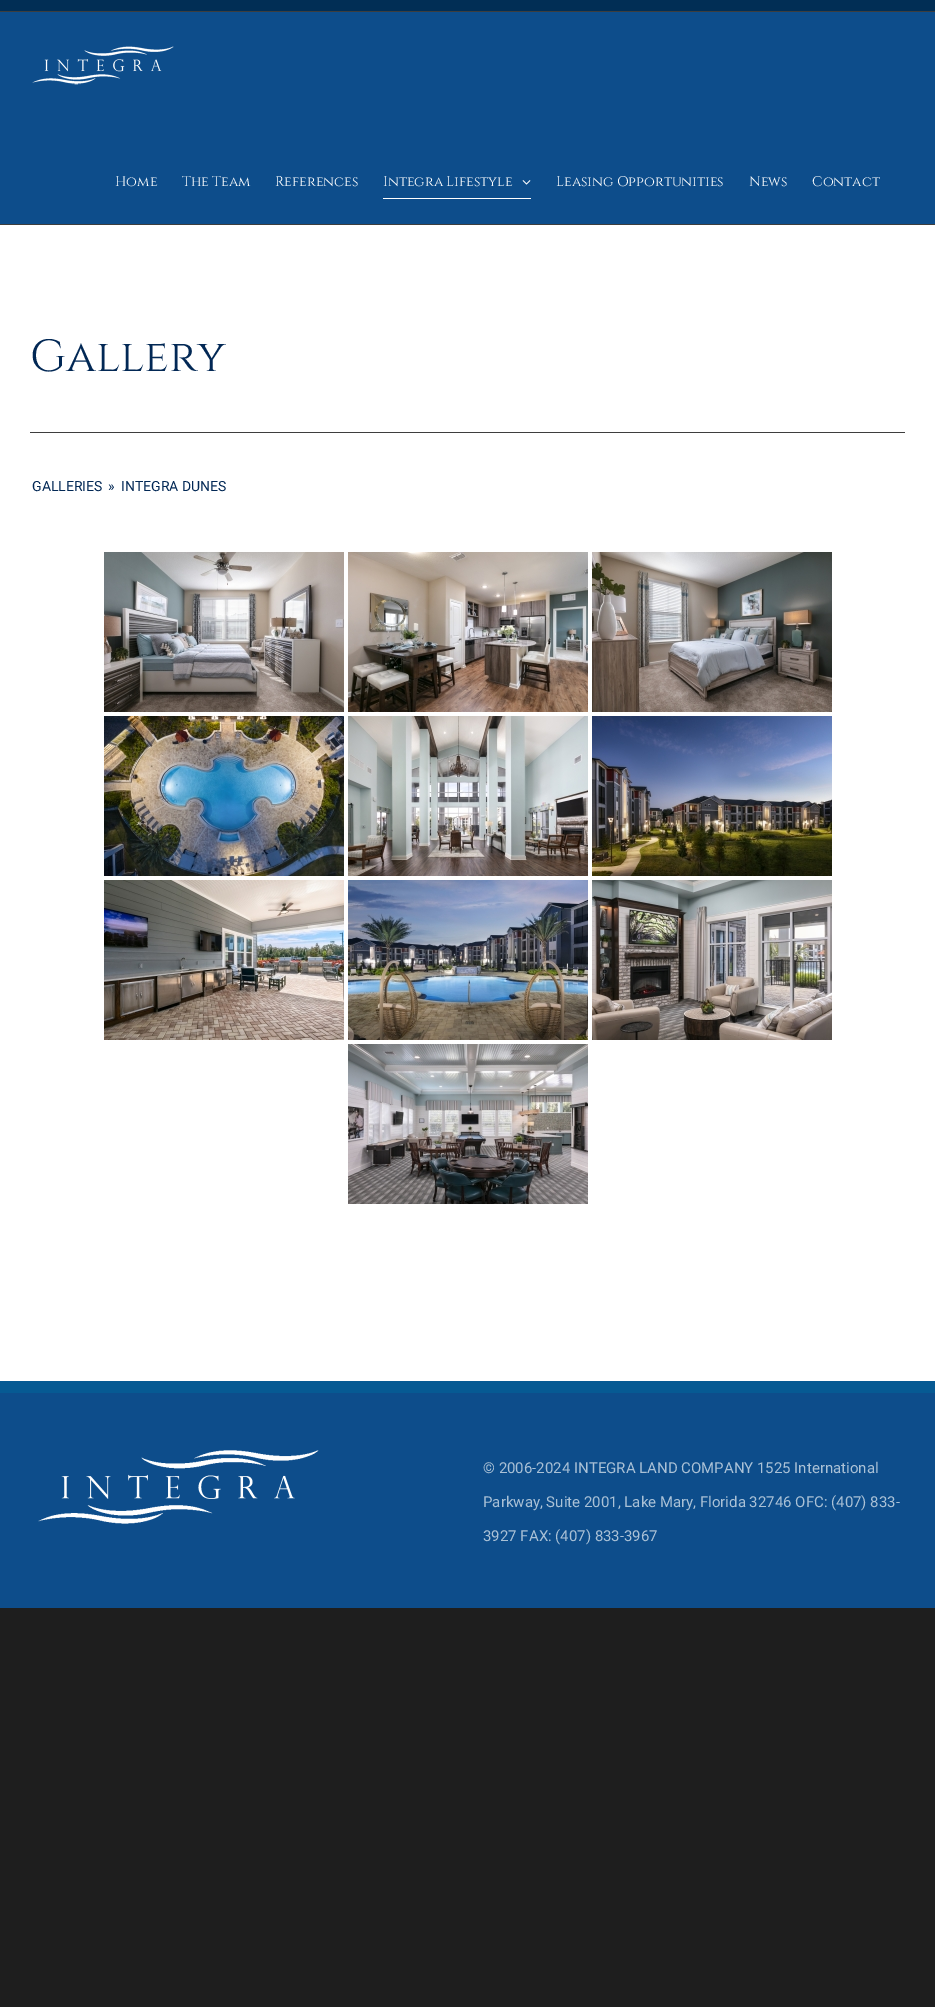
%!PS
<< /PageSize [935 2007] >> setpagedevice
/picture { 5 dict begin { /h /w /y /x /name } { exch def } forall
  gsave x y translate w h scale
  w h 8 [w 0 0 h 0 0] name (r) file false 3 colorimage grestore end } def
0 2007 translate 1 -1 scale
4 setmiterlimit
0.118 setgray
0 0 935 2007 rectfill
1 setgray
0 225 935 1156 rectfill
0.004 0.18 0.333 setrgbcolor
0 0 935 11 rectfill
0.243 setgray
0 11 935 1 rectfill
0.051 0.302 0.545 setrgbcolor
0 12 935 212 rectfill
0.243 setgray
0 224 935 1 rectfill
(img1.rgb) 32 46 142 39 picture
/Cinzel-Regular [14 0 0 -14 0 0] selectfont
1 setgray
115 186 moveto (Home) show
182 186 moveto (The Team) show
275 186 moveto (References) show
383 186 moveto (Integra Lifestyle) show
(img2.rgb) 522 180 9 5 picture
383 198 148 1 rectfill
556 186 moveto (Leasing Opportunities) show
749 186 moveto (News) show
812 186 moveto (Contact) show
/Cinzel-Regular [45 0 0 -45 0 0] selectfont
0.008 0.157 0.333 setrgbcolor
30 371 moveto (Gallery) show
0.243 setgray
30 432 875 1 rectfill
/Roboto-Regular [14 0 0 -14 0 0] selectfont
0.008 0.157 0.333 setrgbcolor
32 491 moveto (GALLERIES) show
108 491 moveto (») show
121 491 moveto (INTEGRA DUNES) show
(img3.rgb) 104 552 240 160 picture
(img4.rgb) 348 552 240 160 picture
(img5.rgb) 592 552 240 160 picture
(img6.rgb) 104 716 240 160 picture
(img7.rgb) 348 716 240 160 picture
(img8.rgb) 592 716 240 160 picture
(img9.rgb) 104 880 240 160 picture
(img10.rgb) 348 880 240 160 picture
(img11.rgb) 592 880 240 160 picture
(img12.rgb) 348 1044 240 160 picture
0.051 0.302 0.545 setrgbcolor
0 1393 935 215 rectfill
0.024 0.353 0.576 setrgbcolor
0 1381 935 12 rectfill
(img13.rgb) 38 1450 281 74 picture
/Roboto-Regular [15 0 0 -15 0 0] selectfont
0.667 0.757 0.839 setrgbcolor
483 1473 moveto (© 2006-2024 INTEGRA LAND COMPANY 1525 International) show
483 1507 moveto (Parkway, Suite 2001, Lake Mary, Florida 32746 OFC: \(407\) 833-) show
483 1541 moveto (3927 FAX: \(407\) 833-3967) show
showpage
